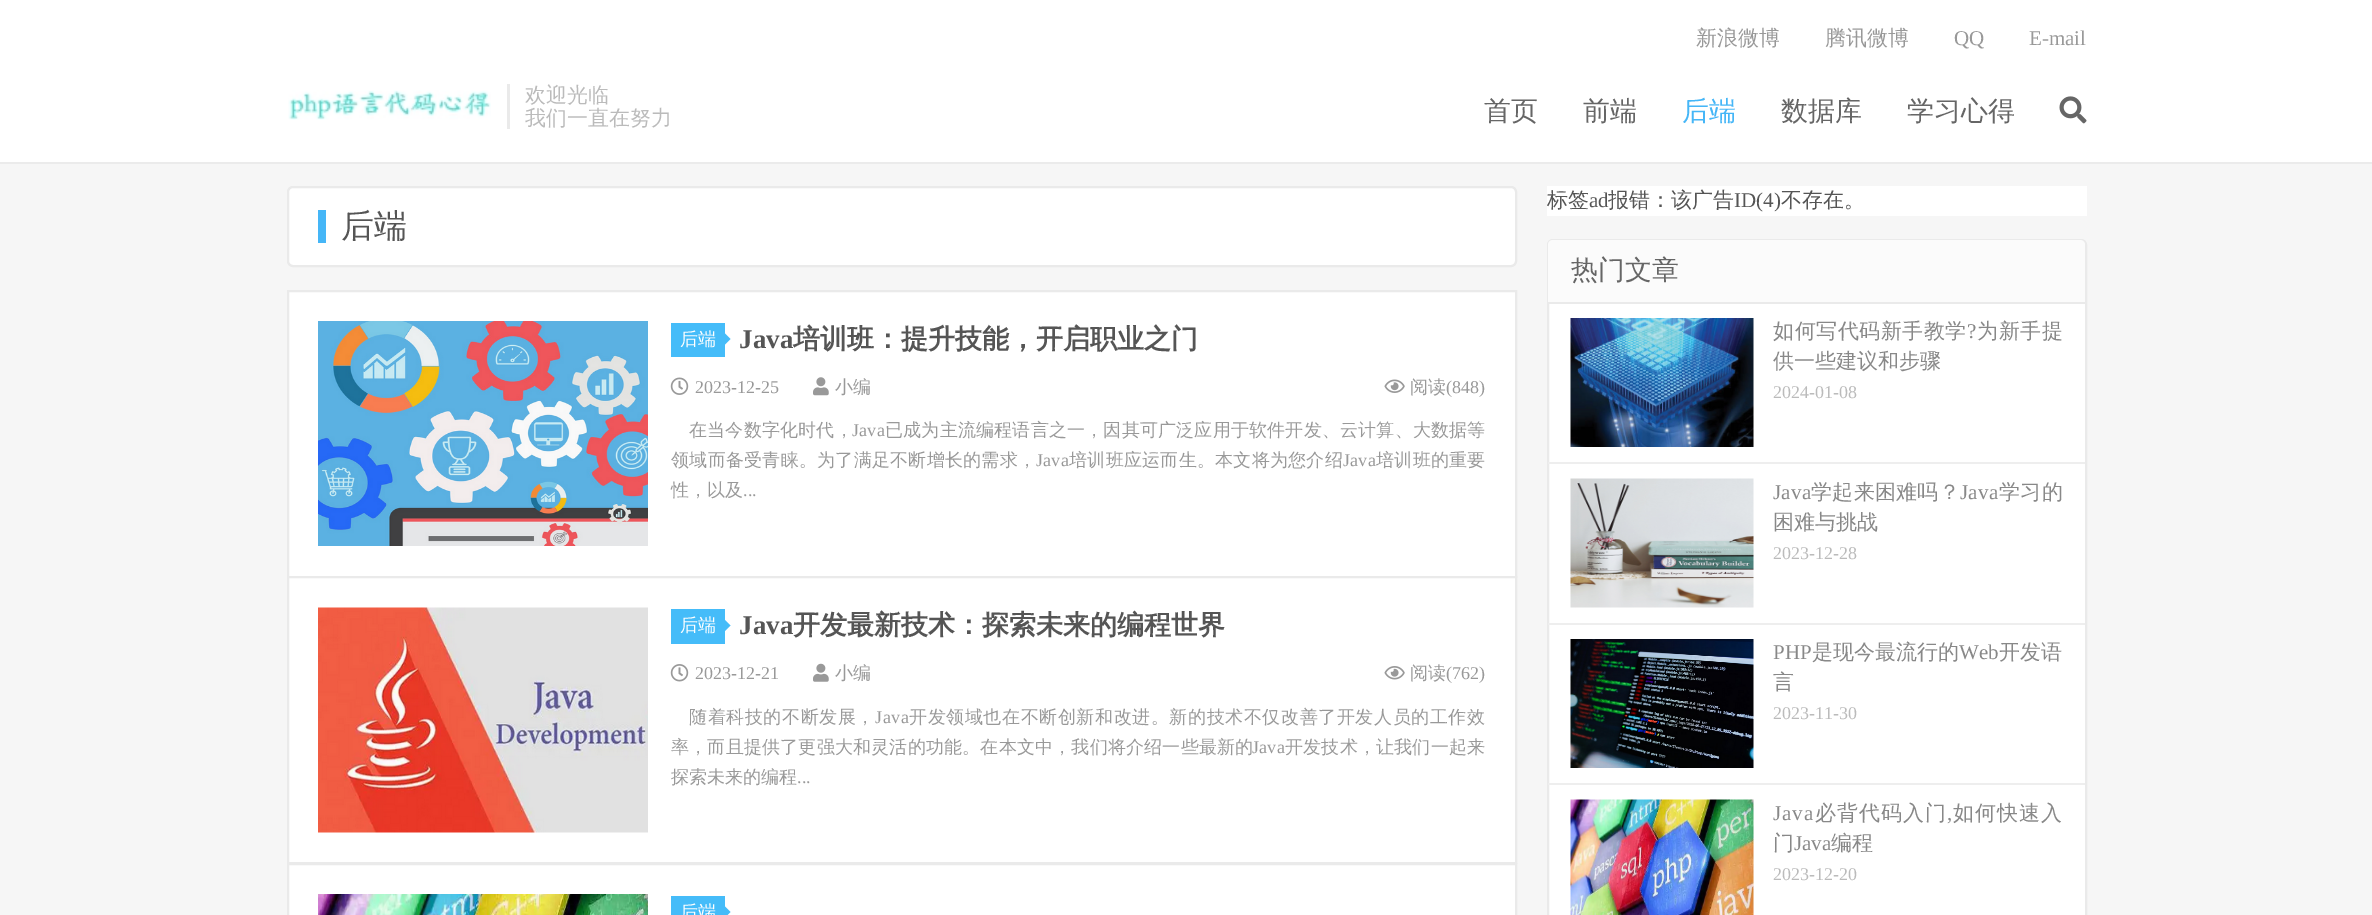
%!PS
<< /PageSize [2372 915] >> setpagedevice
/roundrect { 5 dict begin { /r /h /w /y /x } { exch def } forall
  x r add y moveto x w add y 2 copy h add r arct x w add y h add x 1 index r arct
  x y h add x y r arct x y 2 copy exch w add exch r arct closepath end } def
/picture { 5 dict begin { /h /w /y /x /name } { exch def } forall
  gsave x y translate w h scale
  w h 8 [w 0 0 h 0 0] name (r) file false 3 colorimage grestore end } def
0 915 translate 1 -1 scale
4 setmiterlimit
0.965 setgray
0 0 2372 915 rectfill
1 setgray
0 0 2372 162 rectfill
0.922 setgray
0 162 2372 2 rectfill
/WenQuanYiZenHei-Medium [21 0 0 -21 0 0] selectfont
0.6 setgray
1696 45 moveto (新浪微博) show
1825 45 moveto (腾讯微博) show
/LiberationSerif-Regular [21 0 0 -21 0 0] selectfont
1954 45 moveto (QQ) show
2029 45 moveto (E-mail) show
(img1.rgb) 288 90 203 30 picture
0.918 setgray
507 84 3 45 rectfill
/WenQuanYiZenHei-Medium [21 0 0 -21 0 0] selectfont
0.733 setgray
525 102 moveto (欢迎光临) show
525 125 moveto (我们一直在努力) show
/WenQuanYiZenHei-Medium [27 0 0 -27 0 0] selectfont
0.4 setgray
1484 120 moveto (首页) show
1583 120 moveto (前端) show
0.271 0.714 0.969 setrgbcolor
1682 120 moveto (后端) show
0.4 setgray
1781 120 moveto (数据库) show
1907 120 moveto (学习心得) show
(img2.rgb) 2059 96 28 28 picture
1 setgray
288 187 1228 79 5 roundrect gsave fill grestore
0.918 setgray
2 setlinewidth
stroke
0.271 0.714 0.969 setrgbcolor
318 210 8 33 rectfill
/WenQuanYiZenHei-Medium [33 0 0 -33 0 0] selectfont
0.333 setgray
341 237 moveto (后端) show
1 setgray
newpath 288 291 moveto 1516 291 lineto 1516 577 lineto 288 577 lineto closepath gsave fill grestore
0.918 setgray
stroke
(img3.rgb) 318 321 330 225 picture
0.271 0.737 0.976 setrgbcolor
671 323 54 34 rectfill
/WenQuanYiZenHei-Medium [18 0 0 -18 0 0] selectfont
1 setgray
680 345 moveto (后端) show
0.271 0.737 0.976 setrgbcolor
newpath 724.5 345 moveto 724.5 333 lineto 730.5 339 lineto closepath fill
/LiberationSerif-Bold [27 0 0 -27 0 0] selectfont
0.333 setgray
739 348 moveto (Java) show
/WenQuanYiZenHei-Bold [27 0 0 -27 0 0] selectfont
793 348 moveto (培训班：提升技能，开启职业之门) show
(img4.rgb) 670 377 19 18 picture
/LiberationSerif-Regular [18 0 0 -18 0 0] selectfont
0.6 setgray
695 393 moveto (2023-12-25) show
(img5.rgb) 813 377 16 19 picture
/WenQuanYiZenHei-Medium [18 0 0 -18 0 0] selectfont
835 393 moveto (小编) show
(img6.rgb) 1384 379 21 14 picture
1410 393 moveto (阅读) show
/LiberationSerif-Regular [18 0 0 -18 0 0] selectfont
1446 393 moveto (\(848\)) show
/WenQuanYiZenHei-Medium [18 0 0 -18 0 0] selectfont
689 436 moveto 0.2 0 (在当今数字化时代，) ashow
/LiberationSerif-Regular [18 0 0 -18 0 0] selectfont
852 436 moveto 0.2 0 (Java) ashow
/WenQuanYiZenHei-Medium [18 0 0 -18 0 0] selectfont
885 436 moveto 0.2 0 (已成为主流编程语言之一，因其可广泛应用于软件开发、云计算、大数据等) ashow
671 466 moveto 0.25 0 (领域而备受青睐。为了满足不断增长的需求，) ashow
/LiberationSerif-Regular [18 0 0 -18 0 0] selectfont
1036 466 moveto 0.25 0 (Java) ashow
/WenQuanYiZenHei-Medium [18 0 0 -18 0 0] selectfont
1069 466 moveto 0.25 0 (培训班应运而生。本文将为您介绍) ashow
/LiberationSerif-Regular [18 0 0 -18 0 0] selectfont
1343 466 moveto 0.25 0 (Java) ashow
/WenQuanYiZenHei-Medium [18 0 0 -18 0 0] selectfont
1376 466 moveto 0.25 0 (培训班的重要) ashow
671 496 moveto (性，以及) show
/LiberationSerif-Regular [18 0 0 -18 0 0] selectfont
743 496 moveto (...) show
1 setgray
newpath 288 577 moveto 1516 577 lineto 1516 863 lineto 288 863 lineto closepath gsave fill grestore
0.918 setgray
stroke
(img7.rgb) 318 607 330 226 picture
0.271 0.737 0.976 setrgbcolor
671 609 54 35 rectfill
/WenQuanYiZenHei-Medium [18 0 0 -18 0 0] selectfont
1 setgray
680 631 moveto (后端) show
0.271 0.737 0.976 setrgbcolor
newpath 724.5 631.5 moveto 724.5 619.5 lineto 730.5 625.5 lineto closepath fill
/LiberationSerif-Bold [27 0 0 -27 0 0] selectfont
0.333 setgray
739 634 moveto (Java) show
/WenQuanYiZenHei-Bold [27 0 0 -27 0 0] selectfont
793 634 moveto (开发最新技术：探索未来的编程世界) show
(img8.rgb) 670 664 19 18 picture
/LiberationSerif-Regular [18 0 0 -18 0 0] selectfont
0.6 setgray
695 679 moveto (2023-12-21) show
(img9.rgb) 813 663 16 19 picture
/WenQuanYiZenHei-Medium [18 0 0 -18 0 0] selectfont
835 679 moveto (小编) show
(img10.rgb) 1384 666 21 14 picture
1410 679 moveto (阅读) show
/LiberationSerif-Regular [18 0 0 -18 0 0] selectfont
1446 679 moveto (\(762\)) show
/WenQuanYiZenHei-Medium [18 0 0 -18 0 0] selectfont
689 723 moveto 0.6 0 (随着科技的不断发展，) ashow
/LiberationSerif-Regular [18 0 0 -18 0 0] selectfont
875 723 moveto 0.6 0 (Java) ashow
/WenQuanYiZenHei-Medium [18 0 0 -18 0 0] selectfont
909 723 moveto 0.6 0 (开发领域也在不断创新和改进。新的技术不仅改善了开发人员的工作效) ashow
671 753 moveto 0.2 0 (率，而且提供了更强大和灵活的功能。在本文中，我们将介绍一些最新的) ashow
/LiberationSerif-Regular [18 0 0 -18 0 0] selectfont
1252 753 moveto 0.2 0 (Java) ashow
/WenQuanYiZenHei-Medium [18 0 0 -18 0 0] selectfont
1285 753 moveto 0.2 0 (开发技术，让我们一起来) ashow
671 783 moveto (探索未来的编程) show
/LiberationSerif-Regular [18 0 0 -18 0 0] selectfont
797 783 moveto (...) show
1 setgray
newpath 288 864 moveto 1516 864 lineto 1516 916 lineto 288 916 lineto closepath gsave fill grestore
0.918 setgray
stroke
(img11.rgb) 318 894 330 21 picture
0.271 0.737 0.976 setrgbcolor
671 896 54 19 rectfill
/WenQuanYiZenHei-Medium [18 0 0 -18 0 0] selectfont
1 setgray
680 918 moveto (后端) show
0.271 0.737 0.976 setrgbcolor
newpath 724.5 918 moveto 724.5 906 lineto 730.5 912 lineto closepath fill
1 setgray
1547 186 540 30 rectfill
/WenQuanYiZenHei-Medium [21 0 0 -21 0 0] selectfont
0.333 setgray
1547 207 moveto (标签) show
/LiberationSerif-Regular [21 0 0 -21 0 0] selectfont
1589 207 moveto (ad) show
/WenQuanYiZenHei-Medium [21 0 0 -21 0 0] selectfont
1608 207 moveto (报错：该广告) show
/LiberationSerif-Regular [21 0 0 -21 0 0] selectfont
1734 207 moveto (ID\(4\)) show
/WenQuanYiZenHei-Medium [21 0 0 -21 0 0] selectfont
1781 207 moveto (不存在。) show
1 setgray
1548 240 538 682 5 roundrect gsave fill grestore
0.918 setgray
stroke
0.984 setgray
newpath 1553 240 moveto 2080 240 lineto 2083 240 2085 242 2085 245 curveto 2085 303 lineto 1548 303 lineto 1548 245 lineto 1548 242 1550 240 1553 240 curveto closepath fill
0.918 setgray
1548 302 537 2 rectfill
/WenQuanYiZenHei-Medium [27 0 0 -27 0 0] selectfont
0.4 setgray
1571 279 moveto (热门文章) show
0.933 setgray
1548 462 537 2 rectfill
(img12.rgb) 1570 318 184 129 picture
/WenQuanYiZenHei-Medium [21 0 0 -21 0 0] selectfont
0.533 setgray
1773 338 moveto 0.5 0 (如何写代码新手教学) ashow
/LiberationSerif-Regular [21 0 0 -21 0 0] selectfont
1967 338 moveto 0.5 0 (?) ashow
/WenQuanYiZenHei-Medium [21 0 0 -21 0 0] selectfont
1977 338 moveto 0.5 0 (为新手提) ashow
1773 368 moveto (供一些建议和步骤) show
/LiberationSerif-Regular [18 0 0 -18 0 0] selectfont
0.733 setgray
1773 398 moveto (2024-01-08) show
0.933 setgray
1548 623 537 2 rectfill
(img13.rgb) 1570 478 184 130 picture
/LiberationSerif-Regular [21 0 0 -21 0 0] selectfont
0.533 setgray
1773 499 moveto 0.25 0 (Java) ashow
/WenQuanYiZenHei-Medium [21 0 0 -21 0 0] selectfont
1811 499 moveto 0.25 0 (学起来困难吗？) ashow
/LiberationSerif-Regular [21 0 0 -21 0 0] selectfont
1960 499 moveto 0.25 0 (Java) ashow
/WenQuanYiZenHei-Medium [21 0 0 -21 0 0] selectfont
1999 499 moveto 0.25 0 (学习的) ashow
1773 529 moveto (困难与挑战) show
/LiberationSerif-Regular [18 0 0 -18 0 0] selectfont
0.733 setgray
1773 559 moveto (2023-12-28) show
0.933 setgray
1548 783 537 2 rectfill
(img14.rgb) 1570 639 184 129 picture
/LiberationSerif-Regular [21 0 0 -21 0 0] selectfont
0.533 setgray
1773 659 moveto (PHP) show
/WenQuanYiZenHei-Medium [21 0 0 -21 0 0] selectfont
1812 659 moveto (是现今最流行的) show
/LiberationSerif-Regular [21 0 0 -21 0 0] selectfont
1959 659 moveto (Web) show
/WenQuanYiZenHei-Medium [21 0 0 -21 0 0] selectfont
1999 659 moveto (开发语) show
1773 689 moveto (言) show
/LiberationSerif-Regular [18 0 0 -18 0 0] selectfont
0.733 setgray
1773 719 moveto (2023-11-30) show
(img15.rgb) 1570 799 184 116 picture
/LiberationSerif-Regular [21 0 0 -21 0 0] selectfont
0.533 setgray
1773 820 moveto 1 0 (Java) ashow
/WenQuanYiZenHei-Medium [21 0 0 -21 0 0] selectfont
1815 820 moveto 1 0 (必背代码入门) ashow
/LiberationSerif-Regular [21 0 0 -21 0 0] selectfont
1947 820 moveto 1 0 (,) ashow
/WenQuanYiZenHei-Medium [21 0 0 -21 0 0] selectfont
1953 820 moveto 1 0 (如何快速入) ashow
1773 850 moveto (门) show
/LiberationSerif-Regular [21 0 0 -21 0 0] selectfont
1794 850 moveto (Java) show
/WenQuanYiZenHei-Medium [21 0 0 -21 0 0] selectfont
1831 850 moveto (编程) show
/LiberationSerif-Regular [18 0 0 -18 0 0] selectfont
0.733 setgray
1773 880 moveto (2023-12-20) show
showpage
